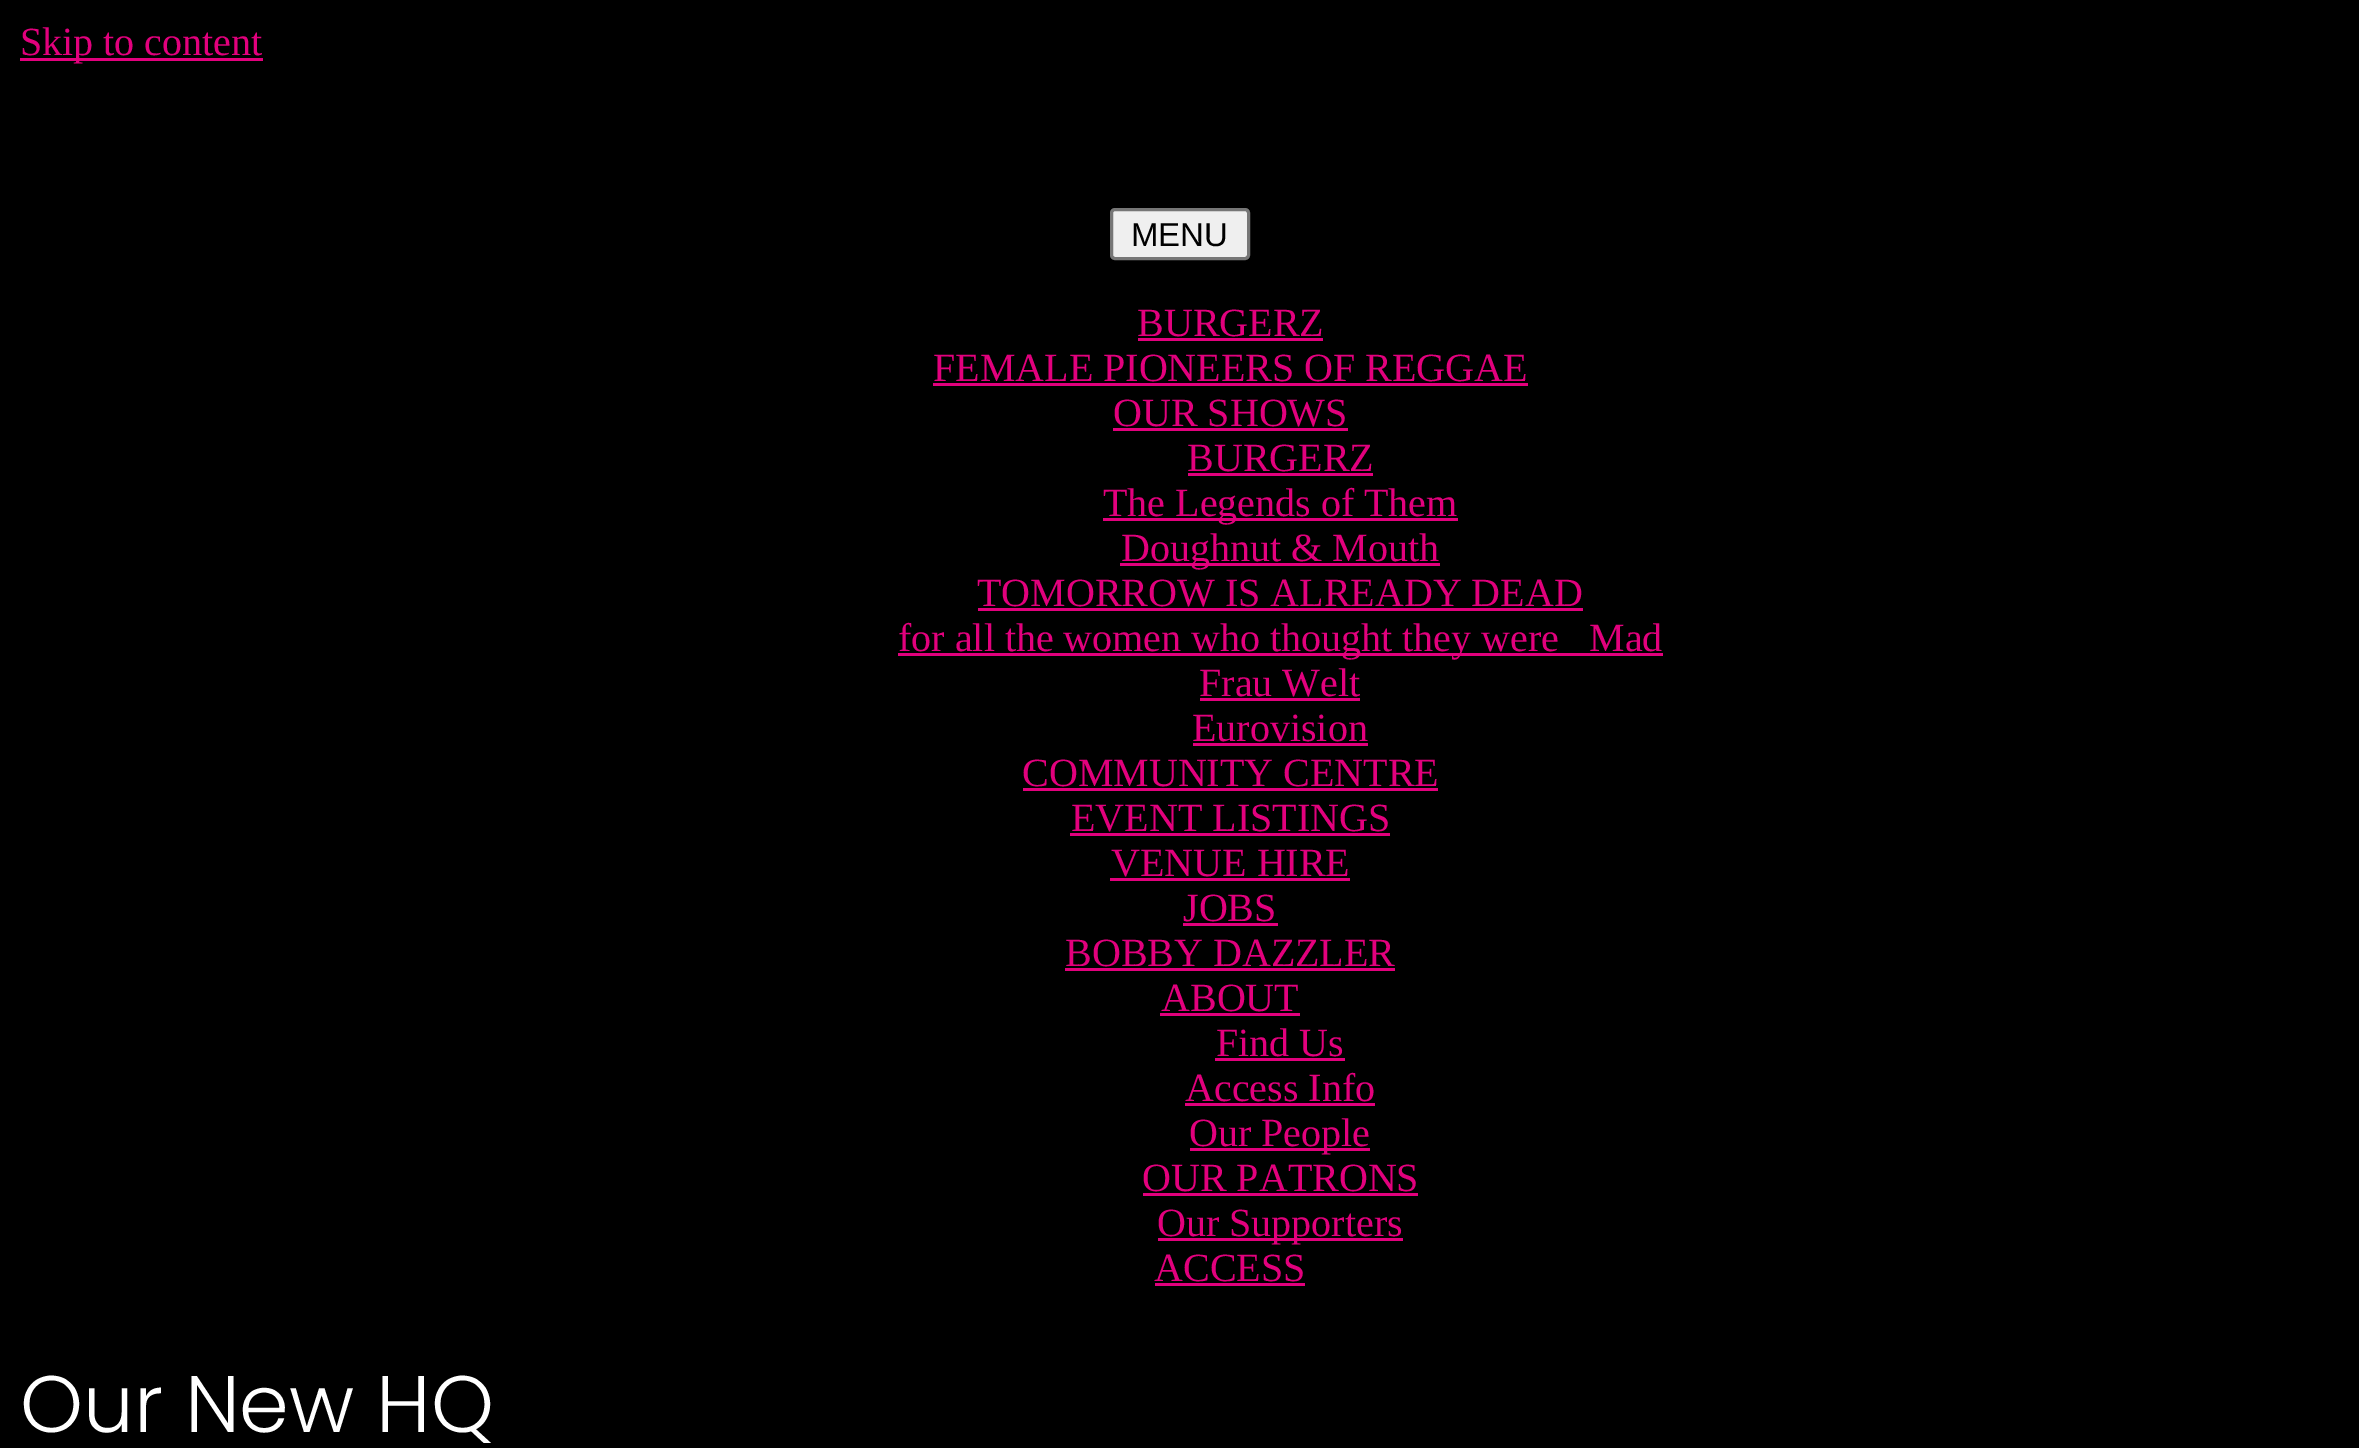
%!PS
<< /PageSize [2359 1448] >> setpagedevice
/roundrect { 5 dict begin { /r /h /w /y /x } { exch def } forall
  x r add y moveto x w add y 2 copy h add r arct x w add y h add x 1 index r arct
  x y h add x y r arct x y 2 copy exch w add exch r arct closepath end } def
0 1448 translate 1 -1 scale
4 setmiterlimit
0 setgray
0 0 2359 1448 rectfill
0.886 0 0.49 setrgbcolor
20 58 243 3 rectfill
/LiberationSerif-Regular [40 0 0 -40 0 0] selectfont
20 55 moveto (Skip to content) show
0.937 setgray
1111.5 209.5 137 49 3.5 roundrect gsave fill grestore
0.463 setgray
3 setlinewidth
stroke
/LiberationSans-Regular [33 0 0 -33 0 0] selectfont
0 setgray
1131 246 moveto (MENU) show
/LiberationSerif-Regular [40 0 0 -40 0 0] selectfont
0.886 0 0.49 setrgbcolor
1137 336 moveto (BURGERZ) show
1138 338 185 3 rectfill
933 381 moveto (FEMALE PIONEERS OF REGGAE) show
933 383 595 3 rectfill
1113 426 moveto (OUR SHOWS) show
1113 428 235 3 rectfill
1187 471 moveto (BURGERZ) show
1188 473 185 3 rectfill
1103 518 355 3 rectfill
1103 516 moveto (The Legends of Them) show
1120 563 320 3 rectfill
1121 561 moveto (Doughnut & Mouth) show
977 606 moveto (TOMORROW IS ALREADY DEAD) show
978 608 605 3 rectfill
898 653 765 3 rectfill
898 651 moveto (for all the women who thought they were   Mad) show
1199 696 moveto (Frau Welt) show
1200 698 160 3 rectfill
1192 741 moveto (Eurovision) show
1193 743 175 3 rectfill
1022 786 moveto (COMMUNITY CENTRE) show
1023 788 415 3 rectfill
1071 831 moveto (EVENT LISTINGS) show
1070 833 320 3 rectfill
1111 876 moveto (VENUE HIRE) show
1110 878 240 3 rectfill
1183 921 moveto (JOBS) show
1183 923 95 3 rectfill
1065 966 moveto (BOBBY DAZZLER) show
1065 968 330 3 rectfill
1161 1011 moveto (ABOUT) show
1160 1013 140 3 rectfill
1216 1056 moveto (Find Us) show
1215 1058 130 3 rectfill
1185 1101 moveto (Access Info) show
1185 1103 190 3 rectfill
1190 1148 180 3 rectfill
1189 1146 moveto (Our People) show
1142 1191 moveto (OUR PATRONS) show
1143 1193 275 3 rectfill
1158 1238 245 3 rectfill
1157 1236 moveto (Our Supporters) show
1154 1281 moveto (ACCESS) show
1155 1283 150 3 rectfill
/Poppins-Light [80 0 0 -80 0 0] selectfont
1 setgray
20 1432 moveto (Our New HQ) show
showpage
